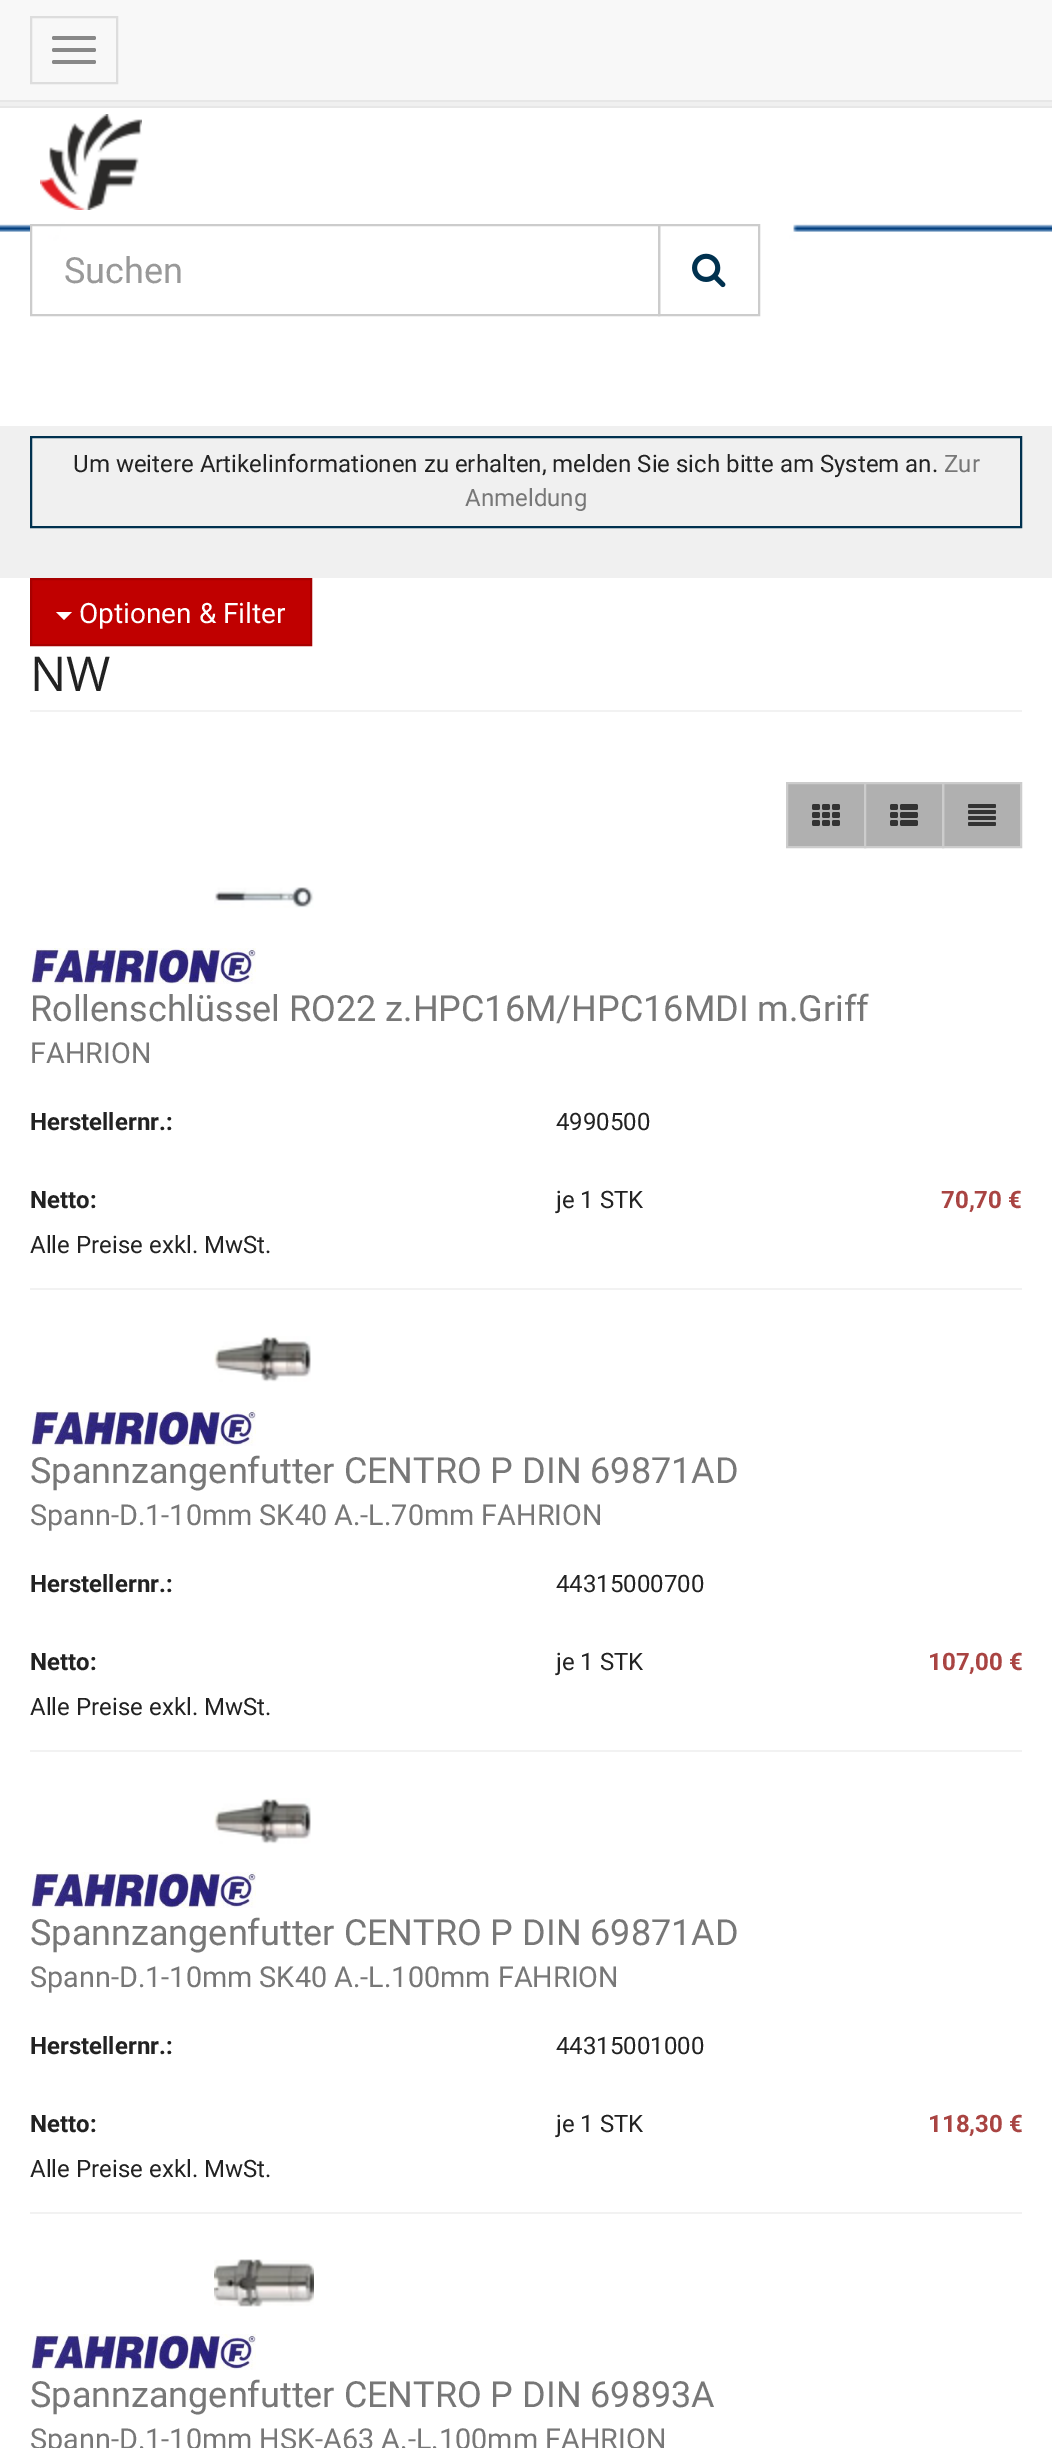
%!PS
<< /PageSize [1052 2448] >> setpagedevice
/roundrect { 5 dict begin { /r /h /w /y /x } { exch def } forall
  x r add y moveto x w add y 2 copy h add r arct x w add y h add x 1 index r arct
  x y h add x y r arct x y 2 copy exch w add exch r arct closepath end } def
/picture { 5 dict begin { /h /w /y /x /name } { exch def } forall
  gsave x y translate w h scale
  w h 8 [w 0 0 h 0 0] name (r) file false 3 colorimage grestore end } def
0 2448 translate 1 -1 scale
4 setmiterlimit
0.941 setgray
0 0 1052 2448 rectfill
0.906 setgray
0 106 1052 2 rectfill
0.973 setgray
0 0 1052 100 rectfill
0.906 setgray
0 100 1052 2 rectfill
0.867 setgray
2 setlinewidth
31 17 86 66 rectstroke
0.533 setgray
52 36 44 4 2 roundrect fill
52 48 44 4 2 roundrect fill
52 60 44 4 2 roundrect fill
(img1.rgb) 0 108 1052 218 picture
(img2.rgb) 40 114 102 96 picture
1 setgray
32 226 28 6 rectfill
0.8 setgray
31 225 628 90 rectstroke
/Roboto-Regular [36 0 0 -36 0 0] selectfont
0.6 setgray
64 283 moveto (Suchen) show
0.8 setgray
659 225 100 90 rectstroke
(img3.rgb) 692 253 34 35 picture
1 setgray
0 326 1052 100 rectfill
0 0.192 0.31 setrgbcolor
31 437 990 90 rectstroke
/Roboto-Regular [24 0 0 -24 0 0] selectfont
0.133 setgray
73 472 moveto (Um weitere Artikelinformationen zu erhalten, melden Sie sich bitte am System an.) show
0.467 setgray
944 472 moveto (Zur) show
465 506 moveto (Anmeldung) show
1 setgray
0 578 1052 1870 rectfill
0.753 0 0 setrgbcolor
newpath 31 579 moveto 311 579 lineto 311 645 lineto 31 645 lineto closepath gsave fill grestore
0.655 0 0 setrgbcolor
stroke
1 setgray
newpath 56 612 moveto 72 612 lineto 64 620 lineto closepath fill
/Roboto-Regular [28 0 0 -28 0 0] selectfont
79 623 moveto (Optionen & Filter) show
0.949 setgray
30 710 992 2 rectfill
/OpenSans-Regular [48 0 0 -48 0 0] selectfont
0.133 setgray
30 691 moveto (NW) show
0.69 setgray
newpath 787 783 moveto 865 783 lineto 865 847 lineto 787 847 lineto closepath gsave fill grestore
0.8 setgray
stroke
(img4.rgb) 812 804 28 22 picture
0.69 setgray
newpath 943 783 moveto 1021 783 lineto 1021 847 lineto 943 847 lineto closepath gsave fill grestore
0.8 setgray
stroke
0.69 setgray
newpath 865 783 moveto 943 783 lineto 943 847 lineto 865 847 lineto closepath gsave fill grestore
0.8 setgray
stroke
(img5.rgb) 890 804 28 22 picture
(img6.rgb) 968 804 28 22 picture
(img7.rgb) 214 887 100 21 picture
(img8.rgb) 30 948 226 36 picture
/Roboto-Regular [36 0 0 -36 0 0] selectfont
0.467 setgray
30 1021 moveto (Rollenschlüssel RO22 z.HPC16M/HPC16MDI m.Griff) show
/Roboto-Regular [28.8 0 0 -28.8 0 0] selectfont
30 1063 moveto (FAHRION) show
/Roboto-Bold [24 0 0 -24 0 0] selectfont
0.133 setgray
30 1130 moveto (Herstellernr.:) show
/Roboto-Regular [24 0 0 -24 0 0] selectfont
556 1130 moveto (4990500) show
/Roboto-Bold [24 0 0 -24 0 0] selectfont
30 1208 moveto (Netto:) show
/Roboto-Regular [24 0 0 -24 0 0] selectfont
556 1208 moveto (je 1 STK) show
/Roboto-Bold [24 0 0 -24 0 0] selectfont
0.663 0.267 0.259 setrgbcolor
941 1208 moveto (70,70 €) show
/Roboto-Regular [24 0 0 -24 0 0] selectfont
0.133 setgray
30 1253 moveto (Alle Preise exkl. MwSt.) show
0.949 setgray
30 1288 992 2 rectfill
(img9.rgb) 214 1336 97 46 picture
(img8.rgb) 30 1410 226 36 picture
/Roboto-Regular [36 0 0 -36 0 0] selectfont
0.467 setgray
30 1483 moveto (Spannzangenfutter CENTRO P DIN 69871AD) show
/Roboto-Regular [28.8 0 0 -28.8 0 0] selectfont
30 1525 moveto (Spann-D.1-10mm SK40 A.-L.70mm FAHRION) show
/Roboto-Bold [24 0 0 -24 0 0] selectfont
0.133 setgray
30 1592 moveto (Herstellernr.:) show
/Roboto-Regular [24 0 0 -24 0 0] selectfont
556 1592 moveto (44315000700) show
/Roboto-Bold [24 0 0 -24 0 0] selectfont
30 1670 moveto (Netto:) show
/Roboto-Regular [24 0 0 -24 0 0] selectfont
556 1670 moveto (je 1 STK) show
/Roboto-Bold [24 0 0 -24 0 0] selectfont
0.663 0.267 0.259 setrgbcolor
928 1670 moveto (107,00 €) show
/Roboto-Regular [24 0 0 -24 0 0] selectfont
0.133 setgray
30 1715 moveto (Alle Preise exkl. MwSt.) show
0.949 setgray
30 1750 992 2 rectfill
(img9.rgb) 214 1798 97 46 picture
(img8.rgb) 30 1872 226 36 picture
/Roboto-Regular [36 0 0 -36 0 0] selectfont
0.467 setgray
30 1945 moveto (Spannzangenfutter CENTRO P DIN 69871AD) show
/Roboto-Regular [28.8 0 0 -28.8 0 0] selectfont
30 1987 moveto (Spann-D.1-10mm SK40 A.-L.100mm FAHRION) show
/Roboto-Bold [24 0 0 -24 0 0] selectfont
0.133 setgray
30 2054 moveto (Herstellernr.:) show
/Roboto-Regular [24 0 0 -24 0 0] selectfont
556 2054 moveto (44315001000) show
/Roboto-Bold [24 0 0 -24 0 0] selectfont
30 2132 moveto (Netto:) show
/Roboto-Regular [24 0 0 -24 0 0] selectfont
556 2132 moveto (je 1 STK) show
/Roboto-Bold [24 0 0 -24 0 0] selectfont
0.663 0.267 0.259 setrgbcolor
928 2132 moveto (118,30 €) show
/Roboto-Regular [24 0 0 -24 0 0] selectfont
0.133 setgray
30 2177 moveto (Alle Preise exkl. MwSt.) show
0.949 setgray
30 2212 992 2 rectfill
(img10.rgb) 214 2259 100 48 picture
(img8.rgb) 30 2334 226 36 picture
/Roboto-Regular [36 0 0 -36 0 0] selectfont
0.467 setgray
30 2407 moveto (Spannzangenfutter CENTRO P DIN 69893A) show
/Roboto-Regular [28.8 0 0 -28.8 0 0] selectfont
30 2449 moveto (Spann-D.1-10mm HSK-A63 A.-L.100mm FAHRION) show
showpage
